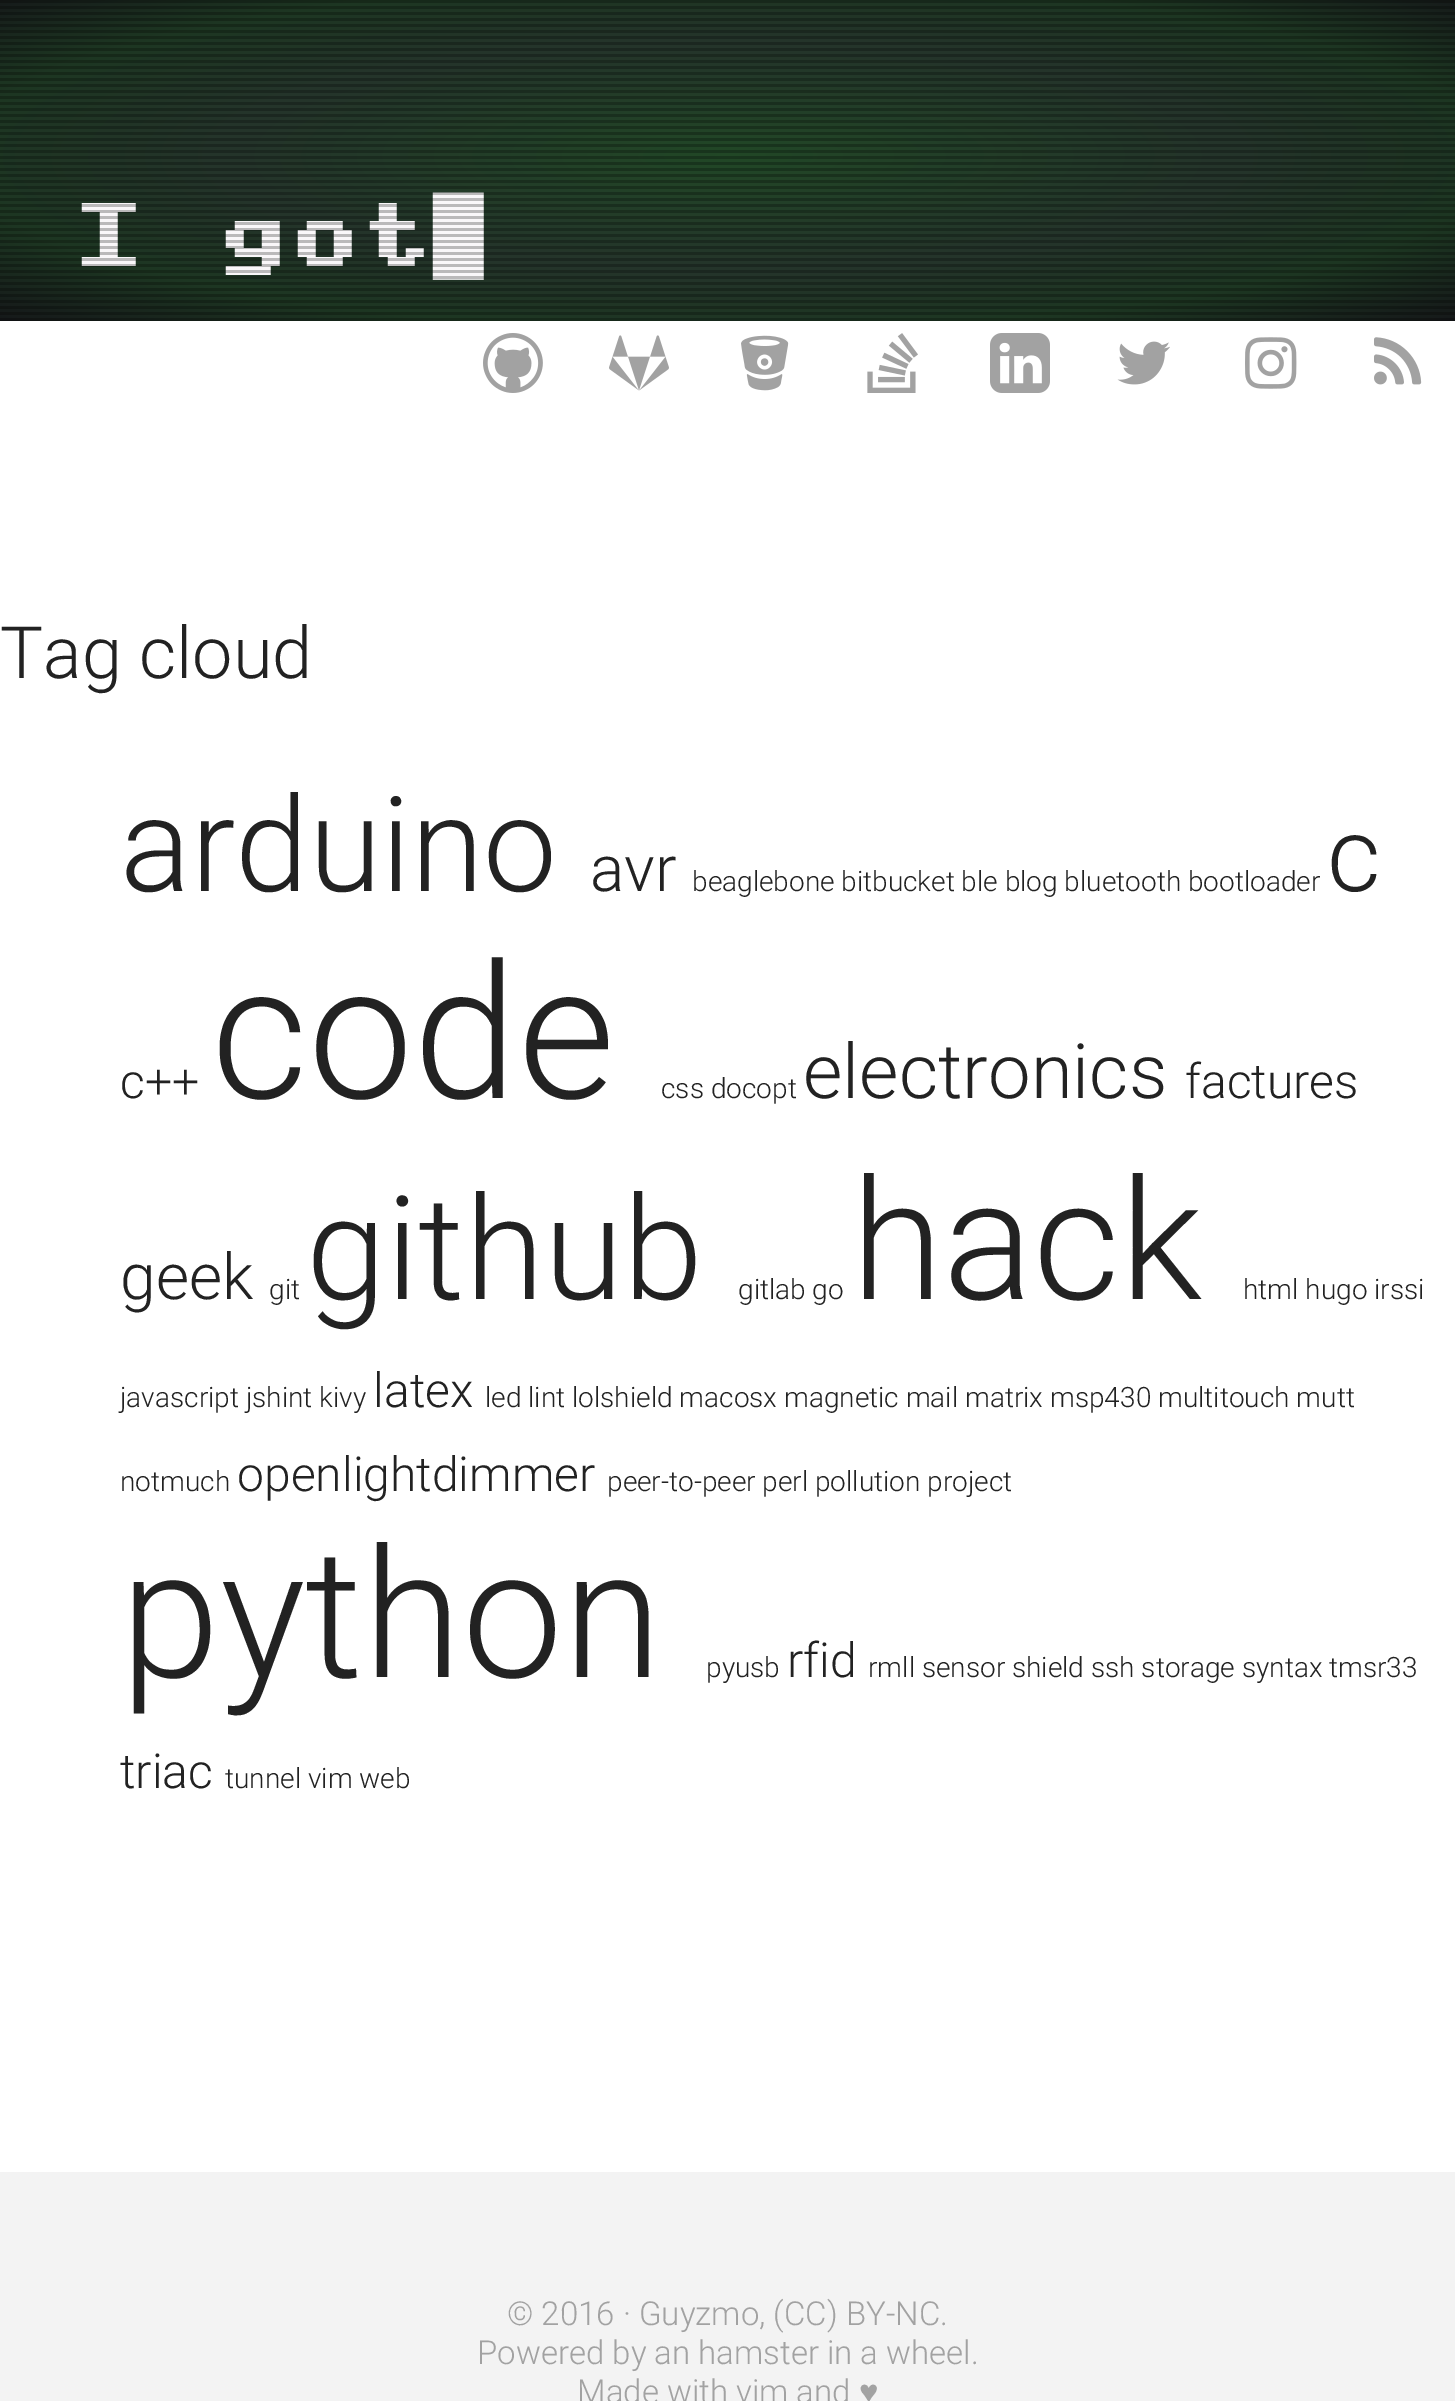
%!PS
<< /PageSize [1455 2401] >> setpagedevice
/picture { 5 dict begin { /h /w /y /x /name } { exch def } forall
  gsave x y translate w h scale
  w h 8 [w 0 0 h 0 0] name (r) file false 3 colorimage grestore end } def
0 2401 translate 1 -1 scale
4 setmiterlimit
1 setgray
0 0 1455 2401 rectfill
gsave newpath 0 0 moveto 1455 0 lineto 1455 321 lineto 0 321 lineto closepath clip newpath 728 156 translate 1029 233 scale
<< /ShadingType 3 /ColorSpace /DeviceRGB /Coords [0 0 0 0 0 1] /Extend [true true] /Function << /FunctionType 3 /Domain [0 1] /Functions [<< /FunctionType 2 /Domain [0 1] /C0 [0.129 0.278 0.149] /C1 [0.141 0.204 0.165] /N 1 >> << /FunctionType 2 /Domain [0 1] /C0 [0.141 0.204 0.165] /C1 [0.114 0.212 0.133] /N 1 >> << /FunctionType 2 /Domain [0 1] /C0 [0.114 0.212 0.133] /C1 [0.082 0.094 0.098] /N 1 >>] /Bounds [0.5 0.75] /Encode [0 1 0 1 0 1] >> >> shfill grestore
/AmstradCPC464-Regular [72 0 0 -72 0 0] selectfont
0.976 0.969 0.976 setrgbcolor
73 275 moveto (I got) show
/LiberationSans-Regular [72 0 0 -72 0 0] selectfont
433 258 moveto (█) show
(img1.rgb) 0 0 1455 321 picture
(img2.rgb) 483 333 60 60 picture
(img3.rgb) 609 335 60 56 picture
(img4.rgb) 741 335 48 56 picture
(img5.rgb) 867 333 51 60 picture
(img6.rgb) 990 333 60 60 picture
(img7.rgb) 1117 341 53 44 picture
(img8.rgb) 1245 337 52 52 picture
(img9.rgb) 1374 337 48 48 picture
/Roboto-Light [72 0 0 -72 0 0] selectfont
0.133 setgray
0 678 moveto (Tag cloud) show
/Roboto-Light [132 0 0 -132 0 0] selectfont
120 891 moveto (arduino) show
/Roboto-Light [64 0 0 -64 0 0] selectfont
590 891 moveto (avr) show
/Roboto-Light [28 0 0 -28 0 0] selectfont
692 891 moveto (beaglebone bitbucket ble blog bluetooth bootloader) show
/Roboto-Light [104 0 0 -104 0 0] selectfont
1327 891 moveto (c) show
/Roboto-Light [48 0 0 -48 0 0] selectfont
120 1098 moveto (c++) show
/Roboto-Light [188 0 0 -188 0 0] selectfont
211 1098 moveto (code) show
/Roboto-Light [28 0 0 -28 0 0] selectfont
661 1098 moveto (css docopt) show
/Roboto-Light [76 0 0 -76 0 0] selectfont
803 1098 moveto (electronics) show
/Roboto-Light [48 0 0 -48 0 0] selectfont
1185 1098 moveto (factures) show
/Roboto-Light [64 0 0 -64 0 0] selectfont
120 1299 moveto (geek) show
/Roboto-Light [28 0 0 -28 0 0] selectfont
269 1299 moveto (git) show
/Roboto-Light [144 0 0 -144 0 0] selectfont
306 1299 moveto (github) show
/Roboto-Light [28 0 0 -28 0 0] selectfont
738 1299 moveto (gitlab go) show
/Roboto-Light [168 0 0 -168 0 0] selectfont
851 1299 moveto (hack) show
/Roboto-Light [28 0 0 -28 0 0] selectfont
1243 1299 moveto (html hugo irssi) show
120 1407 moveto (javascript jshint kivy) show
/Roboto-Light [48 0 0 -48 0 0] selectfont
373 1407 moveto (latex) show
/Roboto-Light [28 0 0 -28 0 0] selectfont
485 1407 moveto (led lint lolshield macosx magnetic mail matrix msp430 multitouch mutt) show
120 1491 moveto (notmuch) show
/Roboto-Light [48 0 0 -48 0 0] selectfont
237 1491 moveto (openlightdimmer) show
/Roboto-Light [28 0 0 -28 0 0] selectfont
607 1491 moveto (peer-to-peer perl pollution project) show
/Roboto-Light [180 0 0 -180 0 0] selectfont
120 1677 moveto (python) show
/Roboto-Light [28 0 0 -28 0 0] selectfont
706 1677 moveto (pyusb) show
/Roboto-Light [48 0 0 -48 0 0] selectfont
787 1677 moveto (rfid) show
/Roboto-Light [28 0 0 -28 0 0] selectfont
868 1677 moveto (rmll sensor shield ssh storage syntax tmsr33) show
/Roboto-Light [48 0 0 -48 0 0] selectfont
120 1788 moveto (triac) show
/Roboto-Light [28 0 0 -28 0 0] selectfont
225 1788 moveto (tunnel vim web) show
0.953 setgray
0 2172 1455 229 rectfill
/Roboto-Light [33 0 0 -33 0 0] selectfont
0.635 setgray
507 2325 moveto (© 2016 · Guyzmo, \(CC\) BY-NC.) show
477 2364 moveto (Powered by an hamster in a wheel.) show
577 2403 moveto (Made with vim and) show
/LiberationSans-Regular [33 0 0 -33 0 0] selectfont
859 2403 moveto (♥) show
showpage
